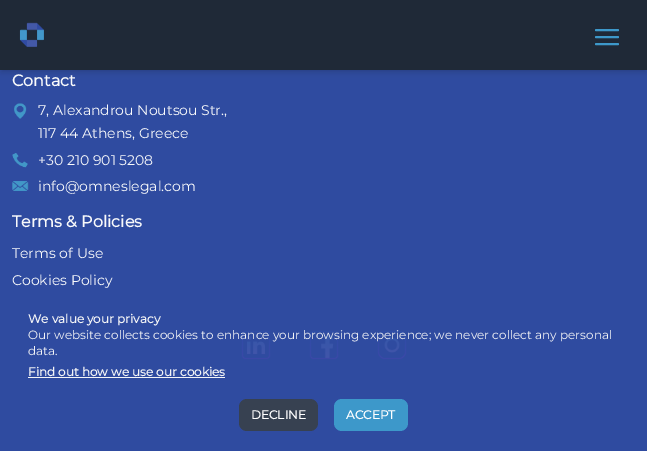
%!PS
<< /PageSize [647 451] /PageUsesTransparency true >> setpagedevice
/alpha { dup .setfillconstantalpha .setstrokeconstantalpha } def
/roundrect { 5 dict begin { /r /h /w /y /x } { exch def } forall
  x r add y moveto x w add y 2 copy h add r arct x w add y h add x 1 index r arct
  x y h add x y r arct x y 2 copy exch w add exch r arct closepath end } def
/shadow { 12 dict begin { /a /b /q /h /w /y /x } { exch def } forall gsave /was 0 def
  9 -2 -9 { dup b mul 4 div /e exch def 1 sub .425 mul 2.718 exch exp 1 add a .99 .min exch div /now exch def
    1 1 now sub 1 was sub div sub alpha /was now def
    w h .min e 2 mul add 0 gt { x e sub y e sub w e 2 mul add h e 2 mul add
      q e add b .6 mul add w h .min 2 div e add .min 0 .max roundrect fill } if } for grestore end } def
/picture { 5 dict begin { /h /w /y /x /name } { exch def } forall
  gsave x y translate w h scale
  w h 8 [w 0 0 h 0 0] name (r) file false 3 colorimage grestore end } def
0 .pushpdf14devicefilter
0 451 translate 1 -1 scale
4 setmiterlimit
0.184 0.294 0.627 setrgbcolor
0 0 647 451 rectfill
0 setgray
2 4 643 66 0 2 0.1 shadow
1 5 645 68 0 3 0.1 shadow
0.122 0.161 0.216 setrgbcolor
0 0 647 70 rectfill
(img1.rgb) 19 22 25 25 picture
0.239 0.596 0.792 setrgbcolor
2 setlinewidth
1 setlinecap
1 setlinejoin
newpath 596 30 moveto 618 30 lineto 596 37 moveto 618 37 lineto 596 44 moveto 618 44 lineto stroke
/Montserrat-Bold [16 0 0 -16 0 0] selectfont
0.976 0.98 0.984 setrgbcolor
12 86 moveto (Contact) show
(img2.rgb) 14 103 13 16 picture
/Montserrat-Thin [14 0 0 -14 0 0] selectfont
38 115 moveto (7, Alexandrou Noutsou Str.,) show
38 138 moveto (117 44 Athens, Greece) show
(img3.rgb) 12 153 16 15 picture
38 165 moveto (+30 210 901 5208) show
(img4.rgb) 12 181 17 10 picture
38 191 moveto (info@omneslegal.com) show
/Montserrat-Bold [16 0 0 -16 0 0] selectfont
12 227 moveto (Terms & Policies) show
/Montserrat-Thin [14 0 0 -14 0 0] selectfont
12 258 moveto (Terms of Use) show
12 285 moveto (Cookies Policy) show
(img5.rgb) 241 330 30 30 picture
(img6.rgb) 309 330 30 30 picture
(img7.rgb) 377 330 30 30 picture
0.9 alpha
0.184 0.294 0.627 setrgbcolor
8 299 631 144 8 roundrect fill
/Montserrat-Bold [12 0 0 -12 0 0] selectfont
1 alpha
0.953 0.957 0.965 setrgbcolor
28 323 moveto (We value your privacy) show
/Montserrat-Thin [12 0 0 -12 0 0] selectfont
28 339 moveto (Our website collects cookies to enhance your browsing experience; we never collect any personal) show
28 355 moveto (data.) show
/Montserrat-Bold [12 0 0 -12 0 0] selectfont
28 376 moveto (Find out how we use our cookies) show
28 377 197 1 rectfill
0.216 0.255 0.318 setrgbcolor
239 399 79 32 8 roundrect fill
1 setgray
251 419 moveto (DECLINE) show
0.239 0.596 0.792 setrgbcolor
334 399 74 32 8 roundrect fill
1 setgray
346 419 moveto (ACCEPT) show
.poppdf14devicefilter showpage
